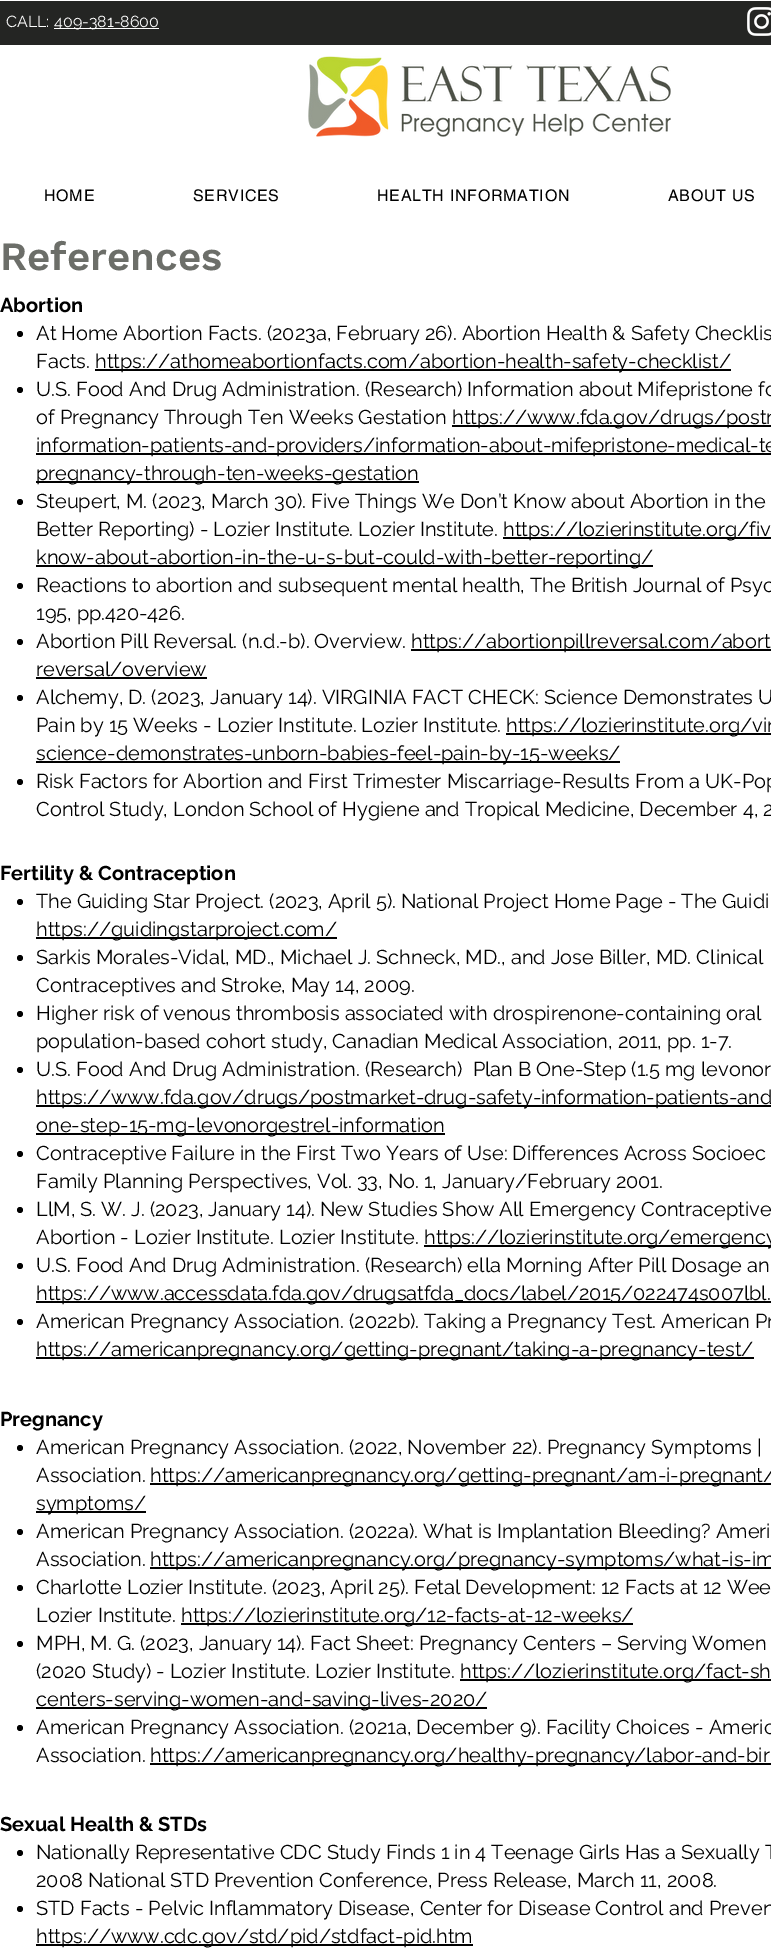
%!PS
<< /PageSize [771 1959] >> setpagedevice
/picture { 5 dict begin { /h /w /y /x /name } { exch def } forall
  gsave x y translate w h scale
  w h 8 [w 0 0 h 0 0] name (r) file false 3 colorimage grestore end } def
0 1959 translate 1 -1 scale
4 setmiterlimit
1 setgray
0 0 771 1959 rectfill
0.141 0.145 0.137 setrgbcolor
0 1 771 44 rectfill
/Raleway-Regular [16 0 0 -16 0 0] selectfont
1 setgray
6 27 moveto (CALL:) show
54 28 105 1 rectfill
54 27 moveto (409-381-8600) show
(img1.rgb) 747 7 24 29 picture
(img2.rgb) 308 56 363 81 picture
/helvetica-Regular [16 0 0 -16 0 0] selectfont
0 setgray
44 201 moveto 0.75 0 (HOME) ashow
193 201 moveto 0.75 0 (SERVICES) ashow
377 201 moveto 0.75 0 (HEALTH INFORMATION) ashow
668 201 moveto 0.75 0 (ABOUT US) ashow
/WorkSans-SemiBold [40 0 0 -40 0 0] selectfont
0.424 0.431 0.412 setrgbcolor
0 270 moveto (References) show
/Raleway-Bold [20 0 0 -20 0 0] selectfont
0 setgray
0 312 moveto (Abortion) show
newpath 20 334 3 0 360 arc closepath fill
/Raleway-Regular [20 0 0 -20 0 0] selectfont
36 340 moveto (At Home Abortion Facts. \(2023a, February 26\). Abortion Health & Safety Checklis) show
36 368 moveto (Facts.) show
95 369 636 2 rectfill
95 368 moveto (https://athomeabortionfacts.com/abortion-health-safety-checklist/) show
newpath 20 390 3 0 360 arc closepath fill
36 396 moveto (U.S. Food And Drug Administration. \(Research\) Information about Mifepristone fo) show
36 424 moveto (of Pregnancy Through Ten Weeks Gestation) show
452 425 319 2 rectfill
452 424 moveto (https://www.fda.gov/drugs/postm) show
36 453 735 2 rectfill
36 452 moveto (information-patients-and-providers/information-about-mifepristone-medical-te) show
36 481 383 2 rectfill
36 480 moveto (pregnancy-through-ten-weeks-gestation) show
newpath 20 502 3 0 360 arc closepath fill
36 508 moveto (Steupert, M. \(2023, March 30\). Five Things We Don’t Know about Abortion in the) show
36 536 moveto (Better Reporting\) - Lozier Institute. Lozier Institute.) show
503 537 268 2 rectfill
503 536 moveto (https://lozierinstitute.org/fiv) show
36 565 617 2 rectfill
36 564 moveto (know-about-abortion-in-the-u-s-but-could-with-better-reporting/) show
newpath 20 586 3 0 360 arc closepath fill
36 592 moveto (Reactions to abortion and subsequent mental health, The British Journal of Psyc) show
36 620 moveto (195, pp.420-426.) show
newpath 20 642 3 0 360 arc closepath fill
36 648 moveto (Abortion Pill Reversal. \(n.d.-b\). Overview.) show
411 649 360 2 rectfill
411 648 moveto (https://abortionpillreversal.com/abort) show
36 676 moveto (reversal/overview) show
36 677 171 2 rectfill
newpath 20 698 3 0 360 arc closepath fill
36 704 moveto (Alchemy, D. \(2023, January 14\). VIRGINIA FACT CHECK: Science Demonstrates U) show
36 732 moveto (Pain by 15 Weeks - Lozier Institute. Lozier Institute.) show
506 733 265 2 rectfill
506 732 moveto (https://lozierinstitute.org/vir) show
36 761 584 2 rectfill
36 760 moveto (science-demonstrates-unborn-babies-feel-pain-by-15-weeks/) show
newpath 20 782 3 0 360 arc closepath fill
36 788 moveto (Risk Factors for Abortion and First Trimester Miscarriage-Results From a UK-Pop) show
36 816 moveto (Control Study, London School of Hygiene and Tropical Medicine, December 4, 2) show
/Raleway-Bold [20 0 0 -20 0 0] selectfont
0 880 moveto (Fertility & Contraception) show
newpath 20 902 3 0 360 arc closepath fill
/Raleway-Regular [20 0 0 -20 0 0] selectfont
36 908 moveto (The Guiding Star Project. \(2023, April 5\). National Project Home Page - The Guidi) show
36 937 301 2 rectfill
36 936 moveto (https://guidingstarproject.com/) show
newpath 20 958 3 0 360 arc closepath fill
36 964 moveto (Sarkis Morales-Vidal, MD., Michael J. Schneck, MD., and Jose Biller, MD. Clinical) show
36 992 moveto (Contraceptives and Stroke, May 14, 2009.) show
newpath 20 1014 3 0 360 arc closepath fill
36 1020 moveto (Higher risk of venous thrombosis associated with drospirenone-containing oral) show
36 1048 moveto (population-based cohort study, Canadian Medical Association, 2011, pp. 1-7.) show
newpath 20 1070 3 0 360 arc closepath fill
36 1076 moveto (U.S. Food And Drug Administration. \(Research\)  Plan B One-Step \(1.5 mg levonor) show
36 1105 735 2 rectfill
36 1104 moveto (https://www.fda.gov/drugs/postmarket-drug-safety-information-patients-and) show
36 1133 409 2 rectfill
36 1132 moveto (one-step-15-mg-levonorgestrel-information) show
newpath 20 1154 3 0 360 arc closepath fill
36 1160 moveto (Contraceptive Failure in the First Two Years of Use: Differences Across Socioec) show
36 1188 moveto (Family Planning Perspectives, Vol. 33, No. 1, January/February 2001.) show
newpath 20 1210 3 0 360 arc closepath fill
36 1216 moveto (LlM, S. W. J. \(2023, January 14\). New Studies Show All Emergency Contraceptive) show
36 1244 moveto (Abortion - Lozier Institute. Lozier Institute.) show
424 1245 347 2 rectfill
424 1244 moveto (https://lozierinstitute.org/emergency) show
newpath 20 1266 3 0 360 arc closepath fill
36 1272 moveto (U.S. Food And Drug Administration. \(Research\) ella Morning After Pill Dosage an) show
36 1301 735 2 rectfill
36 1300 moveto (https://www.accessdata.fda.gov/drugsatfda_docs/label/2015/022474s007lbl.) show
newpath 20 1322 3 0 360 arc closepath fill
36 1328 moveto (American Pregnancy Association. \(2022b\). Taking a Pregnancy Test. American Pr) show
36 1357 718 2 rectfill
36 1356 moveto (https://americanpregnancy.org/getting-pregnant/taking-a-pregnancy-test/) show
/Raleway-Bold [20 0 0 -20 0 0] selectfont
0 1426 moveto (Pregnancy) show
newpath 20 1448 3 0 360 arc closepath fill
/Raleway-Regular [20 0 0 -20 0 0] selectfont
36 1454 moveto (American Pregnancy Association. \(2022, November 22\). Pregnancy Symptoms |) show
36 1482 moveto (Association.) show
150 1483 621 2 rectfill
150 1482 moveto (https://americanpregnancy.org/getting-pregnant/am-i-pregnant/) show
36 1511 110 2 rectfill
36 1510 moveto (symptoms/) show
newpath 20 1532 3 0 360 arc closepath fill
36 1538 moveto (American Pregnancy Association. \(2022a\). What is Implantation Bleeding? Ameri) show
36 1566 moveto (Association.) show
150 1567 621 2 rectfill
150 1566 moveto (https://americanpregnancy.org/pregnancy-symptoms/what-is-im) show
newpath 20 1588 3 0 360 arc closepath fill
36 1594 moveto (Charlotte Lozier Institute. \(2023, April 25\). Fetal Development: 12 Facts at 12 Wee) show
36 1622 moveto (Lozier Institute.) show
181 1623 452 2 rectfill
181 1622 moveto (https://lozierinstitute.org/12-facts-at-12-weeks/) show
newpath 20 1644 3 0 360 arc closepath fill
36 1650 moveto (MPH, M. G. \(2023, January 14\). Fact Sheet: Pregnancy Centers – Serving Women) show
36 1678 moveto (\(2020 Study\) - Lozier Institute. Lozier Institute.) show
460 1679 311 2 rectfill
460 1678 moveto (https://lozierinstitute.org/fact-sh) show
36 1707 451 2 rectfill
36 1706 moveto (centers-serving-women-and-saving-lives-2020/) show
newpath 20 1728 3 0 360 arc closepath fill
36 1734 moveto (American Pregnancy Association. \(2021a, December 9\). Facility Choices - Americ) show
36 1762 moveto (Association.) show
150 1763 621 2 rectfill
150 1762 moveto (https://americanpregnancy.org/healthy-pregnancy/labor-and-bir) show
/Raleway-Bold [20 0 0 -20 0 0] selectfont
0 1831 moveto (Sexual Health & STDs) show
newpath 20 1853 3 0 360 arc closepath fill
/Raleway-Regular [20 0 0 -20 0 0] selectfont
36 1859 moveto (Nationally Representative CDC Study Finds 1 in 4 Teenage Girls Has a Sexually T) show
36 1887 moveto (2008 National STD Prevention Conference, Press Release, March 11, 2008.) show
newpath 20 1909 3 0 360 arc closepath fill
36 1915 moveto (STD Facts - Pelvic Inflammatory Disease, Center for Disease Control and Preven) show
36 1944 437 2 rectfill
36 1943 moveto (https://www.cdc.gov/std/pid/stdfact-pid.htm) show
showpage
